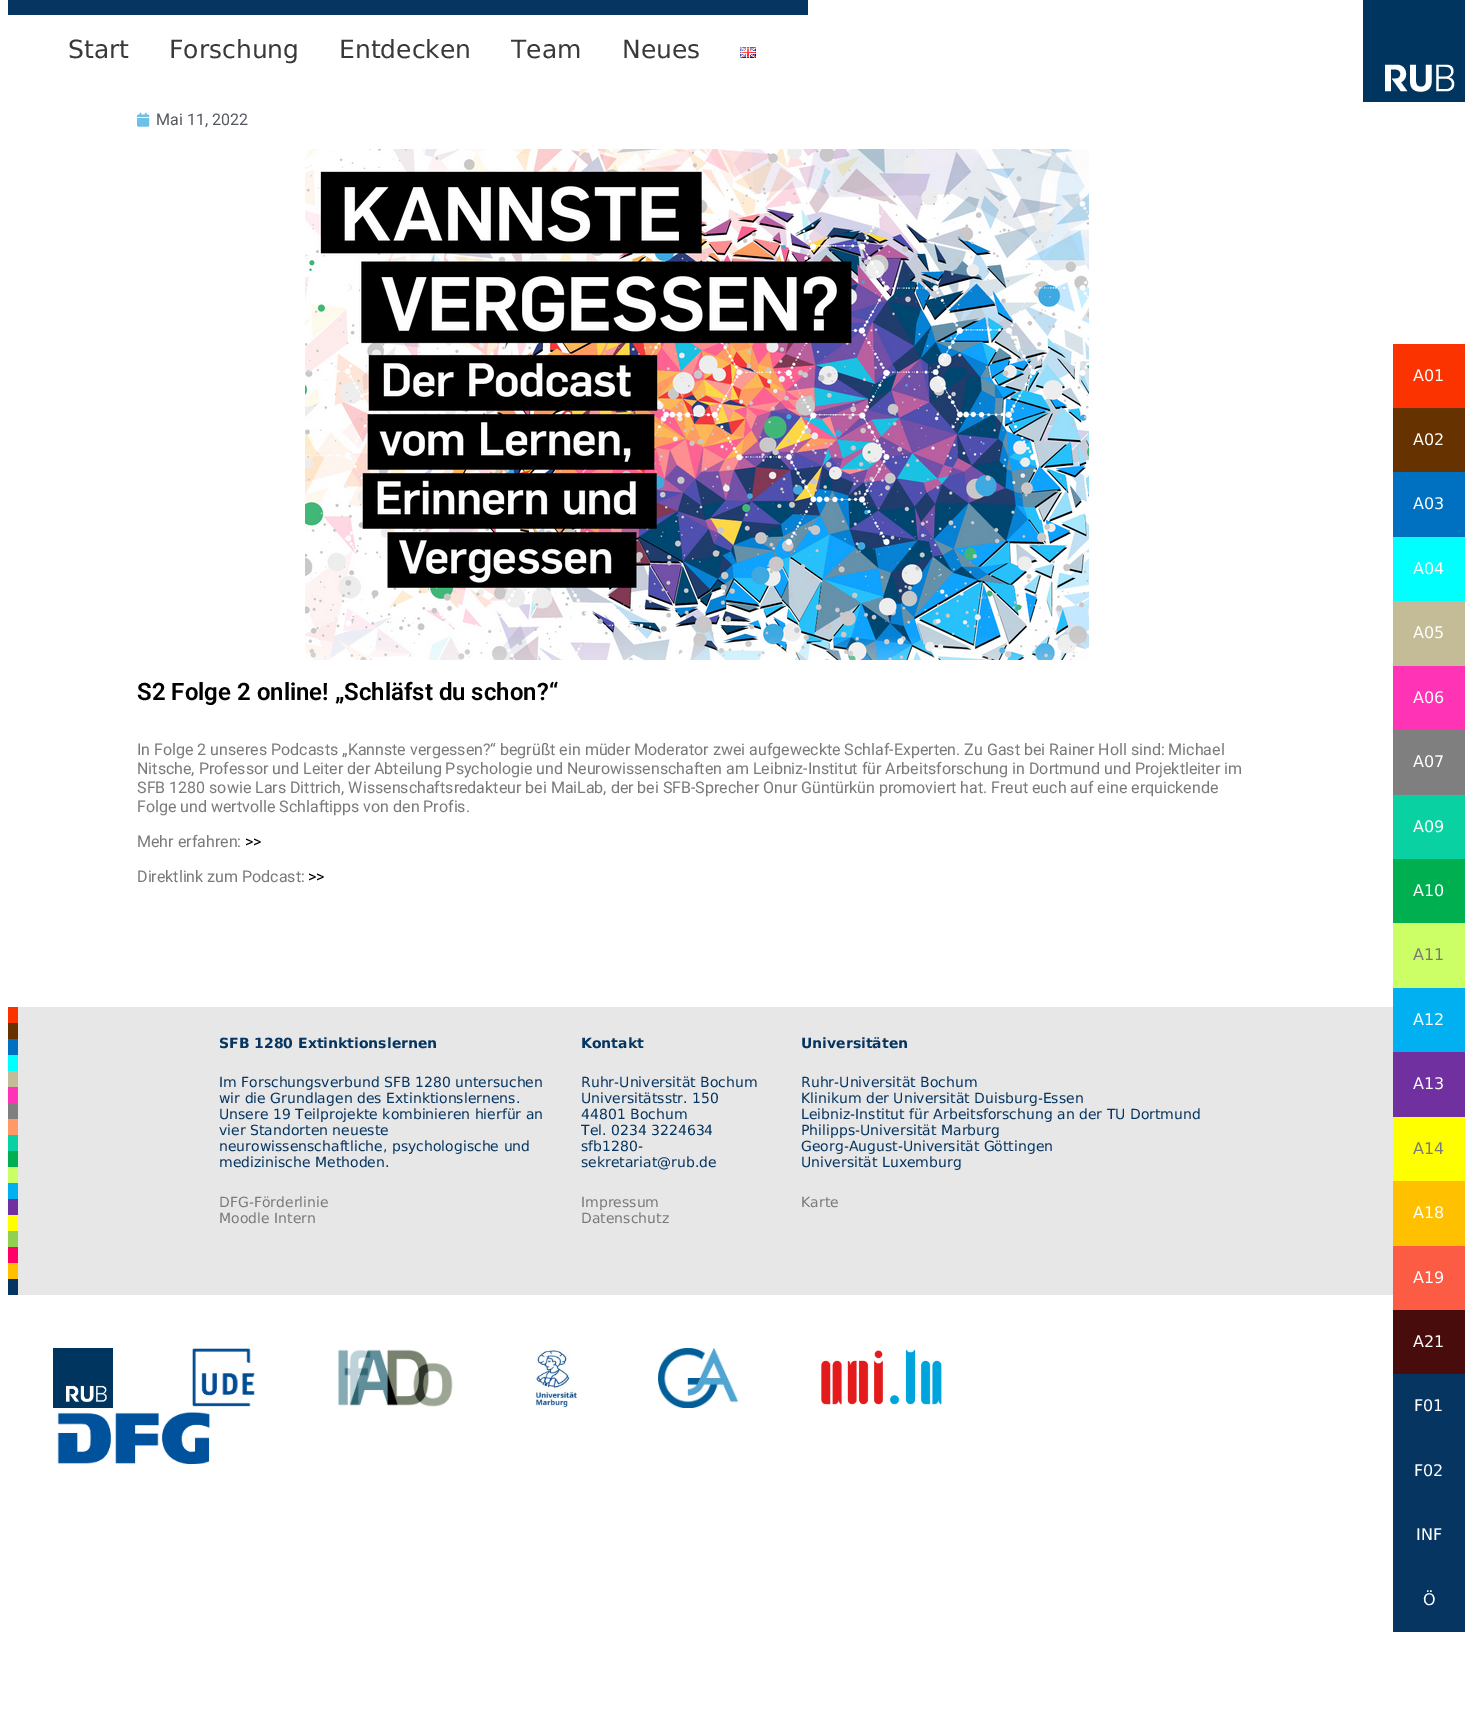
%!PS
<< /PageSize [1465 1718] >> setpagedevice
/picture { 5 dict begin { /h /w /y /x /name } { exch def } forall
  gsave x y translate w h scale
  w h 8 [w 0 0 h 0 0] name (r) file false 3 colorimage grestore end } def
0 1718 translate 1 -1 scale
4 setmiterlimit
1 setgray
0 0 1465 1718 rectfill
0.02 0.208 0.376 setrgbcolor
8 0 800 15 rectfill
/DejaVuSans-Regular [25 0 0 -25 0 0] selectfont
0.224 setgray
68 58 moveto (Start) show
169 58 moveto (Forschung) show
339 58 moveto (Entdecken) show
511 58 moveto (Team) show
622 58 moveto (Neues) show
(img1.rgb) 740 47 16 11 picture
(img2.rgb) 1363 0 102 102 picture
(img3.rgb) 137 112 13 15 picture
/Roboto-Regular [16 0 0 -16 0 0] selectfont
0.329 0.349 0.373 setrgbcolor
156 125 moveto (Mai 11, 2022) show
(img4.rgb) 305 149 784 511 picture
/Roboto-SemiBold [24 0 0 -24 0 0] selectfont
0 setgray
137 700 moveto (S2 Folge 2 online! „Schläfst du schon?“) show
/Roboto-Regular [16 0 0 -16 0 0] selectfont
0.478 setgray
137 755 moveto (In Folge 2 unseres Podcasts „Kannste vergessen?“ begrüßt ein müder Moderator zwei aufgeweckte Schlaf-Experten. Zu Gast bei Rainer Holl sind: Michael) show
137 774 moveto (Nitsche, Professor und Leiter der Abteilung Psychologie und Neurowissenschaften am Leibniz-Institut für Arbeitsforschung in Dortmund und Projektleiter im) show
137 793 moveto (SFB 1280 sowie Lars Dittrich, Wissenschaftsredakteur bei MaiLab, der bei SFB-Sprecher Onur Güntürkün promoviert hat. Freut euch auf eine erquickende) show
137 812 moveto (Folge und wertvolle Schlaftipps von den Profis.) show
137 847 moveto (Mehr erfahren:) show
0 setgray
245 847 moveto (>>) show
0.478 setgray
137 882 moveto (Direktlink zum Podcast:) show
0 setgray
308 882 moveto (>>) show
0.906 setgray
18 1007 1375 288 rectfill
0.984 0.2 0 setrgbcolor
8 1007 10 16 rectfill
0.4 0.2 0 setrgbcolor
8 1023 10 16 rectfill
0 0.439 0.753 setrgbcolor
8 1039 10 16 rectfill
0 1 1 setrgbcolor
8 1055 10 16 rectfill
0.769 0.737 0.588 setrgbcolor
8 1071 10 16 rectfill
1 0.2 0.714 setrgbcolor
8 1087 10 16 rectfill
0.498 setgray
8 1103 10 16 rectfill
1 0.6 0.4 setrgbcolor
8 1119 10 16 rectfill
0.035 0.82 0.631 setrgbcolor
8 1135 10 16 rectfill
0 0.69 0.314 setrgbcolor
8 1151 10 16 rectfill
0.8 1 0.4 setrgbcolor
8 1167 10 16 rectfill
0 0.69 0.941 setrgbcolor
8 1183 10 16 rectfill
0.439 0.188 0.627 setrgbcolor
8 1199 10 16 rectfill
1 1 0 setrgbcolor
8 1215 10 16 rectfill
0.573 0.816 0.314 setrgbcolor
8 1231 10 16 rectfill
1 0 0.4 setrgbcolor
8 1247 10 16 rectfill
1 0.753 0 setrgbcolor
8 1263 10 16 rectfill
0.02 0.208 0.376 setrgbcolor
8 1279 10 16 rectfill
/DejaVuSans-Bold [14 0 0 -14 0 0] selectfont
219 1048 moveto (SFB 1280 Extinktionslernen) show
581 1048 moveto (Kontakt) show
801 1048 moveto (Universitäten) show
/DejaVuSans-Regular [14 0 0 -14 0 0] selectfont
219 1087 moveto (Im Forschungsverbund SFB 1280 untersuchen) show
219 1103 moveto (wir die Grundlagen des Extinktionslernens.) show
219 1119 moveto (Unsere 19 Teilprojekte kombinieren hierfür an) show
219 1135 moveto (vier Standorten neueste) show
219 1151 moveto (neurowissenschaftliche, psychologische und) show
219 1167 moveto (medizinische Methoden.) show
581 1087 moveto (Ruhr-Universität Bochum) show
581 1103 moveto (Universitätsstr. 150) show
581 1119 moveto (44801 Bochum) show
581 1135 moveto (Tel. 0234 3224634) show
581 1151 moveto (sfb1280-) show
581 1167 moveto (sekretariat@rub.de) show
801 1087 moveto (Ruhr-Universität Bochum) show
801 1103 moveto (Klinikum der Universität Duisburg-Essen) show
801 1119 moveto (Leibniz-Institut für Arbeitsforschung an der TU Dortmund) show
801 1135 moveto (Philipps-Universität Marburg) show
801 1151 moveto (Georg-August-Universität Göttingen) show
801 1167 moveto (Universität Luxemburg) show
0.478 setgray
219 1207 moveto (DFG-Förderlinie) show
219 1223 moveto (Moodle Intern) show
581 1207 moveto (Impressum) show
581 1223 moveto (Datenschutz) show
801 1207 moveto (Karte) show
(img5.rgb) 53 1348 60 60 picture
(img6.rgb) 192 1348 63 59 picture
(img7.rgb) 338 1349 115 58 picture
(img8.rgb) 534 1349 46 59 picture
(img9.rgb) 658 1348 81 60 picture
(img10.rgb) 821 1349 121 56 picture
(img11.rgb) 57 1412 153 53 picture
0.984 0.2 0 setrgbcolor
1393 344 72 64 rectfill
/DejaVuSans-Regular [16 0 0 -16 0 0] selectfont
1 setgray
1413 381 moveto (A01) show
0.4 0.2 0 setrgbcolor
1393 408 72 64 rectfill
1 setgray
1413 445 moveto (A02) show
0 0.439 0.753 setrgbcolor
1393 472 72 65 rectfill
1 setgray
1413 509 moveto (A03) show
0 1 1 setrgbcolor
1393 537 72 64 rectfill
1 setgray
1413 574 moveto (A04) show
0.769 0.737 0.588 setrgbcolor
1393 601 72 65 rectfill
1 setgray
1413 638 moveto (A05) show
1 0.2 0.714 setrgbcolor
1393 666 72 64 rectfill
1 setgray
1413 703 moveto (A06) show
0.498 setgray
1393 730 72 65 rectfill
1 setgray
1413 767 moveto (A07) show
0.035 0.82 0.631 setrgbcolor
1393 795 72 64 rectfill
1 setgray
1413 832 moveto (A09) show
0 0.69 0.314 setrgbcolor
1393 859 72 64 rectfill
1 setgray
1413 896 moveto (A10) show
0.8 1 0.4 setrgbcolor
1393 923 72 65 rectfill
0.478 setgray
1413 960 moveto (A11) show
0 0.69 0.941 setrgbcolor
1393 988 72 64 rectfill
1 setgray
1413 1025 moveto (A12) show
0.439 0.188 0.627 setrgbcolor
1393 1052 72 65 rectfill
1 setgray
1413 1089 moveto (A13) show
1 1 0 setrgbcolor
1393 1117 72 64 rectfill
0.478 setgray
1413 1154 moveto (A14) show
1 0.753 0 setrgbcolor
1393 1181 72 65 rectfill
1 setgray
1413 1218 moveto (A18) show
0.988 0.361 0.267 setrgbcolor
1393 1246 72 64 rectfill
1 setgray
1413 1283 moveto (A19) show
0.282 0.047 0.047 setrgbcolor
1393 1310 72 64 rectfill
1 setgray
1413 1347 moveto (A21) show
0.02 0.208 0.376 setrgbcolor
1393 1374 72 258 rectfill
1 setgray
1414 1411 moveto (F01) show
1414 1476 moveto (F02) show
1416 1540 moveto (INF) show
1423 1605 moveto (Ö) show
showpage
